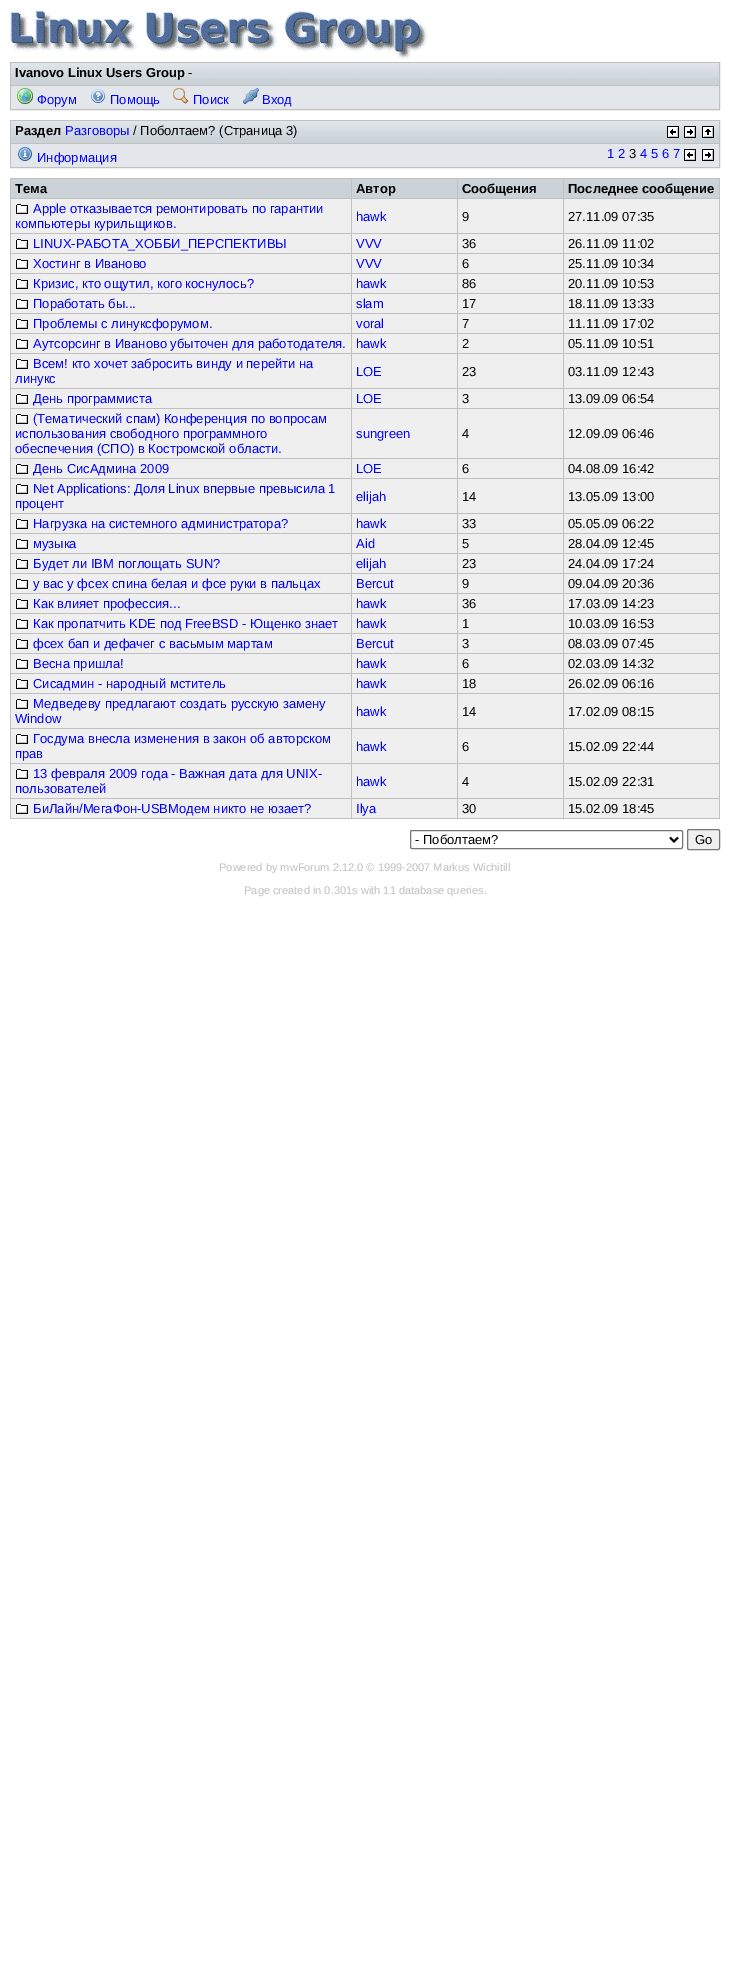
%!PS
<< /PageSize [730 1970] >> setpagedevice
/roundrect { 5 dict begin { /r /h /w /y /x } { exch def } forall
  x r add y moveto x w add y 2 copy h add r arct x w add y h add x 1 index r arct
  x y h add x y r arct x y 2 copy exch w add exch r arct closepath end } def
/picture { 5 dict begin { /h /w /y /x /name } { exch def } forall
  gsave x y translate w h scale
  w h 8 [w 0 0 h 0 0] name (r) file false 3 colorimage grestore end } def
0 1970 translate 1 -1 scale
4 setmiterlimit
1 setgray
0 0 730 1970 rectfill
(img1.rgb) 10 10 418 49 picture
0.753 setgray
10.5 62.5 709 47 rectstroke
0.796 0.827 0.851 setrgbcolor
11 79 708 6 rectfill
(img2.rgb) 11 63 708 16 picture
/LiberationSans-Bold [13 0 0 -13 0 0] selectfont
0 setgray
15 77 moveto (Ivanovo Linux Users Group) show
/LiberationSans-Regular [13 0 0 -13 0 0] selectfont
188 77 moveto (-) show
0.89 0.906 0.922 setrgbcolor
11 86 708 23 rectfill
0.753 setgray
11 85 708 1 rectfill
(img3.rgb) 17 88 16 16 picture
0 0 1 setrgbcolor
37 104 moveto (Форум) show
(img4.rgb) 91 89 14 14 picture
110 104 moveto (Помощь) show
(img5.rgb) 173 88 16 16 picture
193 104 moveto (Поиск) show
(img6.rgb) 243 88 16 16 picture
262 104 moveto (Вход) show
0.753 setgray
10.5 120.5 709 47 rectstroke
0.796 0.827 0.851 setrgbcolor
11 137 708 6 rectfill
(img2.rgb) 11 121 708 16 picture
/LiberationSans-Bold [13 0 0 -13 0 0] selectfont
0 setgray
15 135 moveto (Раздел) show
/LiberationSans-Regular [13 0 0 -13 0 0] selectfont
0 0 1 setrgbcolor
65 135 moveto (Разговоры) show
0 setgray
133 135 moveto (/ Поболтаем? \(Страница 3\)) show
(img7.rgb) 667 126 12 12 picture
(img8.rgb) 684 126 12 12 picture
(img9.rgb) 702 126 12 12 picture
0.89 0.906 0.922 setrgbcolor
11 144 708 23 rectfill
0.753 setgray
11 143 708 1 rectfill
(img10.rgb) 18 147 14 14 picture
0 0 1 setrgbcolor
37 162 moveto (Информация) show
607 158 moveto (1 2) show
0 setgray
629 158 moveto (3) show
0 0 1 setrgbcolor
640 158 moveto (4 5 6 7) show
(img7.rgb) 684 149 12 12 picture
(img8.rgb) 702 149 12 12 picture
0.753 setgray
10 178 710 1 rectfill
719 178 1 641 rectfill
10 818 710 1 rectfill
10 178 1 641 rectfill
0.796 0.827 0.851 setrgbcolor
11 179 708 19 rectfill
/LiberationSans-Bold [13 0 0 -13 0 0] selectfont
0 setgray
15 193 moveto (Тема) show
0.753 setgray
563 198 157 1 rectfill
0.937 setgray
11 199 708 34 rectfill
0.753 setgray
563 233 157 1 rectfill
0.937 setgray
11 234 708 19 rectfill
0.753 setgray
563 253 157 1 rectfill
0.937 setgray
11 254 708 19 rectfill
0.753 setgray
563 273 157 1 rectfill
0.937 setgray
11 274 708 19 rectfill
0.753 setgray
563 293 157 1 rectfill
0.937 setgray
11 294 708 19 rectfill
0.753 setgray
563 313 157 1 rectfill
0.937 setgray
11 314 708 19 rectfill
0.753 setgray
563 333 157 1 rectfill
0.937 setgray
11 334 708 19 rectfill
0.753 setgray
563 353 157 1 rectfill
0.937 setgray
11 354 708 34 rectfill
0.753 setgray
563 388 157 1 rectfill
0.937 setgray
11 389 708 19 rectfill
0.753 setgray
563 408 157 1 rectfill
0.937 setgray
11 409 708 49 rectfill
0.753 setgray
563 458 157 1 rectfill
0.937 setgray
11 459 708 19 rectfill
0.753 setgray
563 478 157 1 rectfill
0.937 setgray
11 479 708 34 rectfill
0.753 setgray
563 513 157 1 rectfill
0.937 setgray
11 514 708 19 rectfill
0.753 setgray
563 533 157 1 rectfill
0.937 setgray
11 534 708 19 rectfill
0.753 setgray
563 553 157 1 rectfill
0.937 setgray
11 554 708 19 rectfill
0.753 setgray
563 573 157 1 rectfill
0.937 setgray
11 574 708 19 rectfill
0.753 setgray
563 593 157 1 rectfill
0.937 setgray
11 594 708 19 rectfill
0.753 setgray
563 613 157 1 rectfill
0.937 setgray
11 614 708 19 rectfill
0.753 setgray
563 633 157 1 rectfill
0.937 setgray
11 634 708 19 rectfill
0.753 setgray
563 653 157 1 rectfill
0.937 setgray
11 654 708 19 rectfill
0.753 setgray
563 673 157 1 rectfill
0.937 setgray
11 674 708 19 rectfill
0.753 setgray
563 693 157 1 rectfill
0.937 setgray
11 694 708 34 rectfill
0.753 setgray
563 728 157 1 rectfill
0.937 setgray
11 729 708 34 rectfill
0.753 setgray
563 763 157 1 rectfill
0.937 setgray
11 764 708 34 rectfill
0.753 setgray
563 798 157 1 rectfill
0.937 setgray
11 799 708 19 rectfill
0.753 setgray
563 798 1 21 rectfill
457 798 107 1 rectfill
563 763 1 36 rectfill
457 763 107 1 rectfill
563 728 1 36 rectfill
457 728 107 1 rectfill
563 693 1 36 rectfill
457 693 107 1 rectfill
563 673 1 21 rectfill
457 673 107 1 rectfill
563 653 1 21 rectfill
457 653 107 1 rectfill
563 633 1 21 rectfill
457 633 107 1 rectfill
563 613 1 21 rectfill
457 613 107 1 rectfill
563 593 1 21 rectfill
457 593 107 1 rectfill
563 573 1 21 rectfill
457 573 107 1 rectfill
563 553 1 21 rectfill
457 553 107 1 rectfill
563 533 1 21 rectfill
457 533 107 1 rectfill
563 513 1 21 rectfill
457 513 107 1 rectfill
563 478 1 36 rectfill
457 478 107 1 rectfill
563 458 1 21 rectfill
457 458 107 1 rectfill
563 408 1 51 rectfill
457 408 107 1 rectfill
563 388 1 21 rectfill
457 388 107 1 rectfill
563 353 1 36 rectfill
457 353 107 1 rectfill
563 333 1 21 rectfill
457 333 107 1 rectfill
563 313 1 21 rectfill
457 313 107 1 rectfill
563 293 1 21 rectfill
457 293 107 1 rectfill
563 273 1 21 rectfill
457 273 107 1 rectfill
563 253 1 21 rectfill
457 253 107 1 rectfill
563 233 1 21 rectfill
457 233 107 1 rectfill
563 198 1 36 rectfill
457 198 107 1 rectfill
457 798 1 21 rectfill
351 798 107 1 rectfill
457 763 1 36 rectfill
351 763 107 1 rectfill
457 728 1 36 rectfill
351 728 107 1 rectfill
457 693 1 36 rectfill
351 693 107 1 rectfill
457 673 1 21 rectfill
351 673 107 1 rectfill
457 653 1 21 rectfill
351 653 107 1 rectfill
457 633 1 21 rectfill
351 633 107 1 rectfill
457 613 1 21 rectfill
351 613 107 1 rectfill
457 593 1 21 rectfill
351 593 107 1 rectfill
457 573 1 21 rectfill
351 573 107 1 rectfill
457 553 1 21 rectfill
351 553 107 1 rectfill
457 533 1 21 rectfill
351 533 107 1 rectfill
457 513 1 21 rectfill
351 513 107 1 rectfill
457 478 1 36 rectfill
351 478 107 1 rectfill
457 458 1 21 rectfill
351 458 107 1 rectfill
457 408 1 51 rectfill
351 408 107 1 rectfill
457 388 1 21 rectfill
351 388 107 1 rectfill
457 353 1 36 rectfill
351 353 107 1 rectfill
457 333 1 21 rectfill
351 333 107 1 rectfill
457 313 1 21 rectfill
351 313 107 1 rectfill
457 293 1 21 rectfill
351 293 107 1 rectfill
457 273 1 21 rectfill
351 273 107 1 rectfill
457 253 1 21 rectfill
351 253 107 1 rectfill
457 233 1 21 rectfill
351 233 107 1 rectfill
457 198 1 36 rectfill
351 198 107 1 rectfill
351 798 1 21 rectfill
10 798 342 1 rectfill
351 763 1 36 rectfill
10 763 342 1 rectfill
351 728 1 36 rectfill
10 728 342 1 rectfill
351 693 1 36 rectfill
10 693 342 1 rectfill
351 673 1 21 rectfill
10 673 342 1 rectfill
351 653 1 21 rectfill
10 653 342 1 rectfill
351 633 1 21 rectfill
10 633 342 1 rectfill
351 613 1 21 rectfill
10 613 342 1 rectfill
351 593 1 21 rectfill
10 593 342 1 rectfill
351 573 1 21 rectfill
10 573 342 1 rectfill
351 553 1 21 rectfill
10 553 342 1 rectfill
351 533 1 21 rectfill
10 533 342 1 rectfill
351 513 1 21 rectfill
10 513 342 1 rectfill
351 478 1 36 rectfill
10 478 342 1 rectfill
351 458 1 21 rectfill
10 458 342 1 rectfill
351 408 1 51 rectfill
10 408 342 1 rectfill
351 388 1 21 rectfill
10 388 342 1 rectfill
351 353 1 36 rectfill
10 353 342 1 rectfill
351 333 1 21 rectfill
10 333 342 1 rectfill
351 313 1 21 rectfill
10 313 342 1 rectfill
351 293 1 21 rectfill
10 293 342 1 rectfill
351 273 1 21 rectfill
10 273 342 1 rectfill
351 253 1 21 rectfill
10 253 342 1 rectfill
351 233 1 21 rectfill
10 233 342 1 rectfill
351 198 1 36 rectfill
10 198 342 1 rectfill
351 178 1 21 rectfill
0 setgray
356 193 moveto (Автор) show
0.753 setgray
457 178 1 21 rectfill
0 setgray
462 193 moveto (Сообщения) show
0.753 setgray
563 178 1 21 rectfill
0 setgray
568 193 moveto (Последнее сообщение) show
(img11.rgb) 16 204 12 10 picture
/LiberationSans-Regular [13 0 0 -13 0 0] selectfont
0 0 1 setrgbcolor
33 213 moveto (Apple отказывается ремонтировать по гарантии) show
15 228 moveto (компьютеры курильщиков.) show
356 221 moveto (hawk) show
0 setgray
462 221 moveto (9) show
568 221 moveto (27.11.09 07:35) show
(img11.rgb) 16 239 12 10 picture
0 0 1 setrgbcolor
33 248 moveto (LINUX-РАБОТА_ХОББИ_ПЕРСПЕКТИВЫ) show
356 248 moveto (VVV) show
0 setgray
462 248 moveto (36) show
568 248 moveto (26.11.09 11:02) show
(img11.rgb) 16 259 12 10 picture
0 0 1 setrgbcolor
33 268 moveto (Хостинг в Иваново) show
356 268 moveto (VVV) show
0 setgray
462 268 moveto (6) show
568 268 moveto (25.11.09 10:34) show
(img11.rgb) 16 279 12 10 picture
0 0 1 setrgbcolor
33 288 moveto (Кризис, кто ощутил, кого коснулось?) show
356 288 moveto (hawk) show
0 setgray
462 288 moveto (86) show
568 288 moveto (20.11.09 10:53) show
(img11.rgb) 16 299 12 10 picture
0 0 1 setrgbcolor
33 308 moveto (Поработать бы...) show
356 308 moveto (slam) show
0 setgray
462 308 moveto (17) show
568 308 moveto (18.11.09 13:33) show
(img11.rgb) 16 319 12 10 picture
0 0 1 setrgbcolor
33 328 moveto (Проблемы с линуксфорумом.) show
356 328 moveto (voral) show
0 setgray
462 328 moveto (7) show
568 328 moveto (11.11.09 17:02) show
(img11.rgb) 16 339 12 10 picture
0 0 1 setrgbcolor
33 348 moveto (Аутсорсинг в Иваново убыточен для работодателя.) show
356 348 moveto (hawk) show
0 setgray
462 348 moveto (2) show
568 348 moveto (05.11.09 10:51) show
(img11.rgb) 16 359 12 10 picture
0 0 1 setrgbcolor
33 368 moveto (Всем! кто хочет забросить винду и перейти на) show
15 383 moveto (линукс) show
356 376 moveto (LOE) show
0 setgray
462 376 moveto (23) show
568 376 moveto (03.11.09 12:43) show
(img11.rgb) 16 394 12 10 picture
0 0 1 setrgbcolor
33 403 moveto (День программиста) show
356 403 moveto (LOE) show
0 setgray
462 403 moveto (3) show
568 403 moveto (13.09.09 06:54) show
(img11.rgb) 16 414 12 10 picture
0 0 1 setrgbcolor
33 423 moveto (\(Тематический спам\) Конференция по вопросам) show
15 438 moveto (использования свободного программного) show
15 453 moveto (обеспечения \(СПО\) в Костромской области.) show
356 438 moveto (sungreen) show
0 setgray
462 438 moveto (4) show
568 438 moveto (12.09.09 06:46) show
(img11.rgb) 16 464 12 10 picture
0 0 1 setrgbcolor
33 473 moveto (День СисАдмина 2009) show
356 473 moveto (LOE) show
0 setgray
462 473 moveto (6) show
568 473 moveto (04.08.09 16:42) show
(img11.rgb) 16 484 12 10 picture
0 0 1 setrgbcolor
33 493 moveto (Net Applications: Доля Linux впервые превысила 1) show
15 508 moveto (процент) show
356 501 moveto (elijah) show
0 setgray
462 501 moveto (14) show
568 501 moveto (13.05.09 13:00) show
(img11.rgb) 16 519 12 10 picture
0 0 1 setrgbcolor
33 528 moveto (Нагрузка на системного администратора?) show
356 528 moveto (hawk) show
0 setgray
462 528 moveto (33) show
568 528 moveto (05.05.09 06:22) show
(img11.rgb) 16 539 12 10 picture
0 0 1 setrgbcolor
33 548 moveto (музыка) show
356 548 moveto (Aid) show
0 setgray
462 548 moveto (5) show
568 548 moveto (28.04.09 12:45) show
(img11.rgb) 16 559 12 10 picture
0 0 1 setrgbcolor
33 568 moveto (Будет ли IBM поглощать SUN?) show
356 568 moveto (elijah) show
0 setgray
462 568 moveto (23) show
568 568 moveto (24.04.09 17:24) show
(img11.rgb) 16 579 12 10 picture
0 0 1 setrgbcolor
33 588 moveto (у вас у фсех спина белая и фсе руки в пальцах) show
356 588 moveto (Bercut) show
0 setgray
462 588 moveto (9) show
568 588 moveto (09.04.09 20:36) show
(img11.rgb) 16 599 12 10 picture
0 0 1 setrgbcolor
33 608 moveto (Как влияет профессия...) show
356 608 moveto (hawk) show
0 setgray
462 608 moveto (36) show
568 608 moveto (17.03.09 14:23) show
(img11.rgb) 16 619 12 10 picture
0 0 1 setrgbcolor
33 628 moveto (Как пропатчить KDE под FreeBSD - Ющенко знает) show
356 628 moveto (hawk) show
0 setgray
462 628 moveto (1) show
568 628 moveto (10.03.09 16:53) show
(img11.rgb) 16 639 12 10 picture
0 0 1 setrgbcolor
33 648 moveto (фсех бап и дефачег с васьмым мартам) show
356 648 moveto (Bercut) show
0 setgray
462 648 moveto (3) show
568 648 moveto (08.03.09 07:45) show
(img11.rgb) 16 659 12 10 picture
0 0 1 setrgbcolor
33 668 moveto (Весна пришла!) show
356 668 moveto (hawk) show
0 setgray
462 668 moveto (6) show
568 668 moveto (02.03.09 14:32) show
(img11.rgb) 16 679 12 10 picture
0 0 1 setrgbcolor
33 688 moveto (Сисадмин - народный мститель) show
356 688 moveto (hawk) show
0 setgray
462 688 moveto (18) show
568 688 moveto (26.02.09 06:16) show
(img11.rgb) 16 699 12 10 picture
0 0 1 setrgbcolor
33 708 moveto (Медведеву предлагают создать русскую замену) show
15 723 moveto (Window) show
356 716 moveto (hawk) show
0 setgray
462 716 moveto (14) show
568 716 moveto (17.02.09 08:15) show
(img11.rgb) 16 734 12 10 picture
0 0 1 setrgbcolor
33 743 moveto (Госдума внесла изменения в закон об авторском) show
15 758 moveto (прав) show
356 751 moveto (hawk) show
0 setgray
462 751 moveto (6) show
568 751 moveto (15.02.09 22:44) show
(img11.rgb) 16 769 12 10 picture
0 0 1 setrgbcolor
33 778 moveto (13 февраля 2009 года - Важная дата для UNIX-) show
15 793 moveto (пользователей) show
356 786 moveto (hawk) show
0 setgray
462 786 moveto (4) show
568 786 moveto (15.02.09 22:31) show
(img11.rgb) 16 804 12 10 picture
0 0 1 setrgbcolor
33 813 moveto (БиЛайн/МегаФон-USBМодем никто не юзает?) show
356 813 moveto (Ilya) show
0 setgray
462 813 moveto (30) show
568 813 moveto (15.02.09 18:45) show
0.463 setgray
410.5 830.5 272 18 1.5 roundrect stroke
0 setgray
2 setlinewidth
newpath 670 837.5 moveto 674 841.5 lineto 678 837.5 lineto stroke
415 844 moveto (- Поболтаем?) show
0.937 setgray
687.5 829.5 32 20 1.5 roundrect gsave fill grestore
0.463 setgray
1 setlinewidth
stroke
0 setgray
695 844 moveto (Go) show
/LiberationSans-Regular [11.05 0 0 -11.05 0 0] selectfont
0.753 setgray
219 871 moveto (Powered by mwForum 2.12.0 © 1999-2007 Markus Wichitill) show
244 894 moveto (Page created in 0.301s with 11 database queries.) show
showpage
